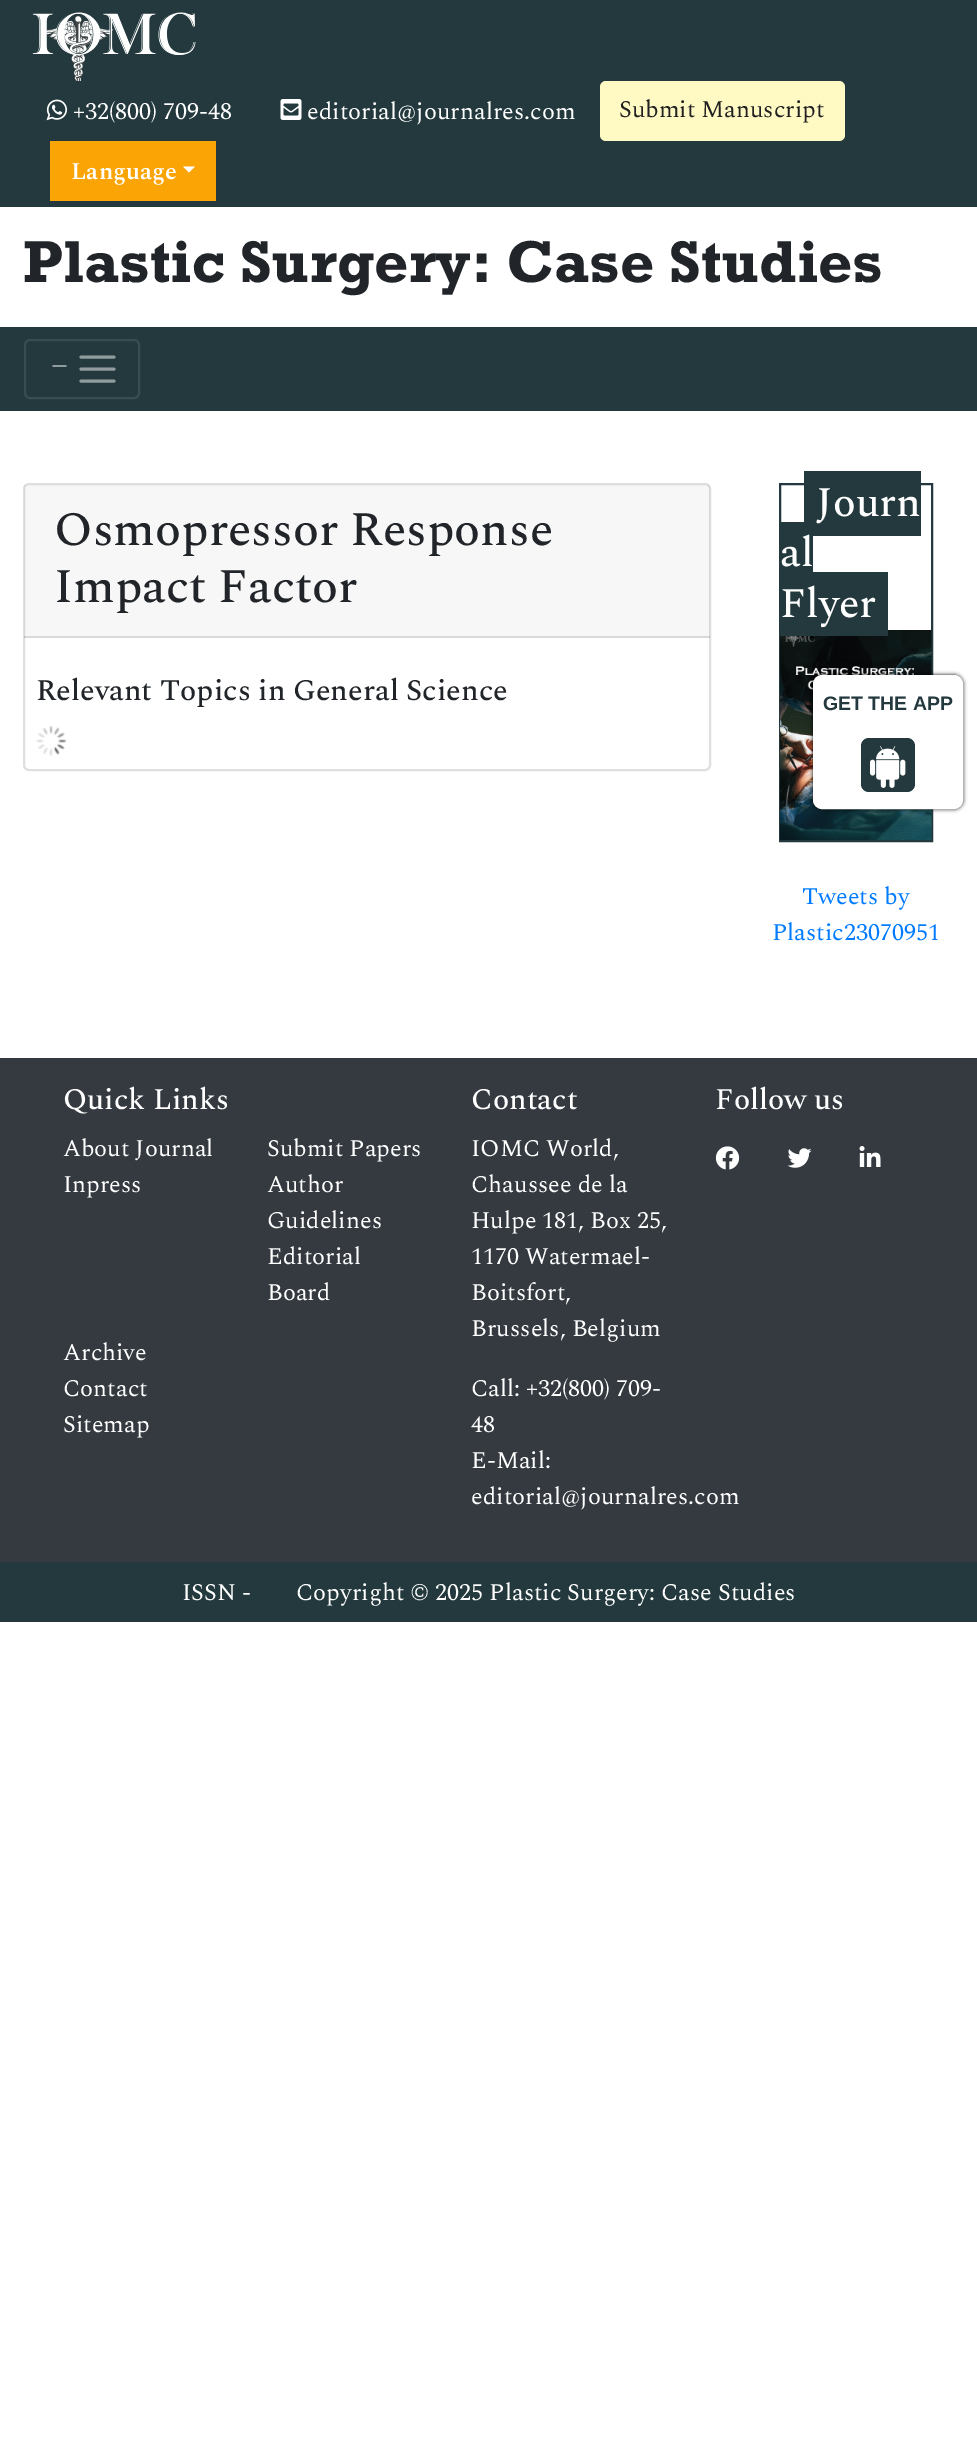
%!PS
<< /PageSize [977 2457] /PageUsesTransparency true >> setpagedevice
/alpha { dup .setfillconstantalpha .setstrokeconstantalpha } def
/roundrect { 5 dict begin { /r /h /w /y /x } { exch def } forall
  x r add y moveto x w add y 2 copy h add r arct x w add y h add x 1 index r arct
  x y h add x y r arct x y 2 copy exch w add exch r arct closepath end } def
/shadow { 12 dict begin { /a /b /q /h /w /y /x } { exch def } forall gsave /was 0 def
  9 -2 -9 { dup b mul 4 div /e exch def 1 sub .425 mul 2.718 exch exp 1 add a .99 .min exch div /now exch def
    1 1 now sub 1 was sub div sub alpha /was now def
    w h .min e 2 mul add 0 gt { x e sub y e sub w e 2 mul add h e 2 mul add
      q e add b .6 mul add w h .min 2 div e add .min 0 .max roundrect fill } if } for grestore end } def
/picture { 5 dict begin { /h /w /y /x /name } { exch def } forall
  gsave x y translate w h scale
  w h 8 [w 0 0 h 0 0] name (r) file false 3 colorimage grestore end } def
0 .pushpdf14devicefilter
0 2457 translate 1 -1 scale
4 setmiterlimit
1 setgray
0 0 977 2457 rectfill
0.137 0.224 0.239 setrgbcolor
0 0 977 207 rectfill
(img1.rgb) 32 12 164 69 picture
(img2.rgb) 46 99 22 22 picture
/Spectral-Regular [24 0 0 -24 0 0] selectfont
1 setgray
73 119 moveto (+32\(800\) 709-48) show
(img3.rgb) 280 99 22 21 picture
307 119 moveto (editorial@journalres.com) show
1 0.976 0.769 setrgbcolor
600 81 245 60 6 roundrect fill
0.129 setgray
619 117 moveto (Submit Manuscript) show
0.984 0.643 0.02 setrgbcolor
50 141 166 60 rectfill
/Spectral-SemiBold [24 0 0 -24 0 0] selectfont
1 setgray
71 179 moveto (Language) show
newpath 183 166.5 moveto 195 166.5 lineto 189 172.5 lineto closepath fill
/Rockwell-Bold [60 0 0 -60 0 0] selectfont
0.129 0.145 0.161 setrgbcolor
23 282 moveto (Plastic Surgery: Case Studies) show
0.137 0.224 0.239 setrgbcolor
0 327 977 84 rectfill
0.224 0.302 0.314 setrgbcolor
2 setlinewidth
25 340 114 58 5 roundrect stroke
/LiberationSerif-Bold [30 0 0 -30 0 0] selectfont
0.569 0.612 0.62 setrgbcolor
51 376 moveto (−) show
3 setlinewidth
1 setlinecap
newpath 81 357 moveto 114 357 lineto 81 369 moveto 114 369 lineto 81 381 moveto 114 381 lineto stroke
0.875 setgray
2 setlinewidth
0 setlinecap
24 484 686 286 5 roundrect stroke
0.03 alpha
0 setgray
24 485 686 153 rectfill
0.12 alpha
24 636 686 2 rectfill
/Spectral-Medium [48 0 0 -48 0 0] selectfont
1 alpha
0.129 0.145 0.161 setrgbcolor
54 545 moveto (Osmopressor Response) show
54 602 moveto (Impact Factor) show
/Spectral-Medium [30 0 0 -30 0 0] selectfont
36 700 moveto (Relevant Topics in General Science) show
(img4.rgb) 36 726 30 30 picture
0.137 0.224 0.239 setrgbcolor
780 484 152 357 rectstroke
804 471 117 65 rectfill
/Spectral-Medium [42 0 0 -42 0 0] selectfont
1 setgray
816 516 moveto (Journ) show
0.137 0.224 0.239 setrgbcolor
781 522 32 50 rectfill
1 setgray
780 566 moveto (al) show
(img5.rgb) 780 630 152 210 picture
0.137 0.224 0.239 setrgbcolor
780 572 108 64 rectfill
1 setgray
780 617 moveto (Flyer) show
/Spectral-Regular [24 0 0 -24 0 0] selectfont
0 0.482 1 setrgbcolor
802 904 moveto (Tweets by) show
772 940 moveto (Plastic23070951) show
0 setgray
813 675 150 134 9 2 1 shadow
1 setgray
814 676 148 132 8 roundrect gsave fill grestore
stroke
/LiberationSans-Bold [19.5 0 0 -19.5 0 0] selectfont
0.137 0.224 0.239 setrgbcolor
823 710 moveto (GET THE APP) show
861 738 54 54 8 roundrect fill
(img6.rgb) 870 746 36 42 picture
0.204 0.227 0.251 setrgbcolor
0 1058 977 504 rectfill
/Spectral-Medium [30 0 0 -30 0 0] selectfont
1 setgray
63 1109 moveto (Quick Links) show
/Spectral-Regular [24 0 0 -24 0 0] selectfont
63 1156 moveto (About Journal) show
63 1192 moveto (Inpress) show
267 1156 moveto (Submit Papers) show
267 1192 moveto (Author) show
267 1228 moveto (Guidelines) show
267 1264 moveto (Editorial) show
267 1300 moveto (Board) show
63 1360 moveto (Archive) show
63 1396 moveto (Contact) show
63 1432 moveto (Sitemap) show
/Spectral-Medium [30 0 0 -30 0 0] selectfont
471 1109 moveto (Contact) show
/Spectral-Regular [24 0 0 -24 0 0] selectfont
471 1156 moveto (IOMC World,) show
471 1192 moveto (Chaussee de la) show
471 1228 moveto (Hulpe 181, Box 25,) show
471 1264 moveto (1170 Watermael-) show
471 1300 moveto (Boitsfort,) show
471 1336 moveto (Brussels, Belgium) show
471 1396 moveto (Call: +32\(800\) 709-) show
471 1432 moveto (48) show
471 1468 moveto (E-Mail:) show
471 1504 moveto (editorial@journalres.com) show
/Spectral-Medium [30 0 0 -30 0 0] selectfont
715 1109 moveto (Follow us) show
(img7.rgb) 715 1146 25 24 picture
(img8.rgb) 787 1148 25 20 picture
(img9.rgb) 859 1146 22 21 picture
0.137 0.224 0.239 setrgbcolor
0 1562 977 60 rectfill
/Spectral-Regular [24 0 0 -24 0 0] selectfont
1 setgray
182 1600 moveto (ISSN -) show
296 1600 moveto (Copyright © 2025 Plastic Surgery: Case Studies) show
.poppdf14devicefilter showpage
